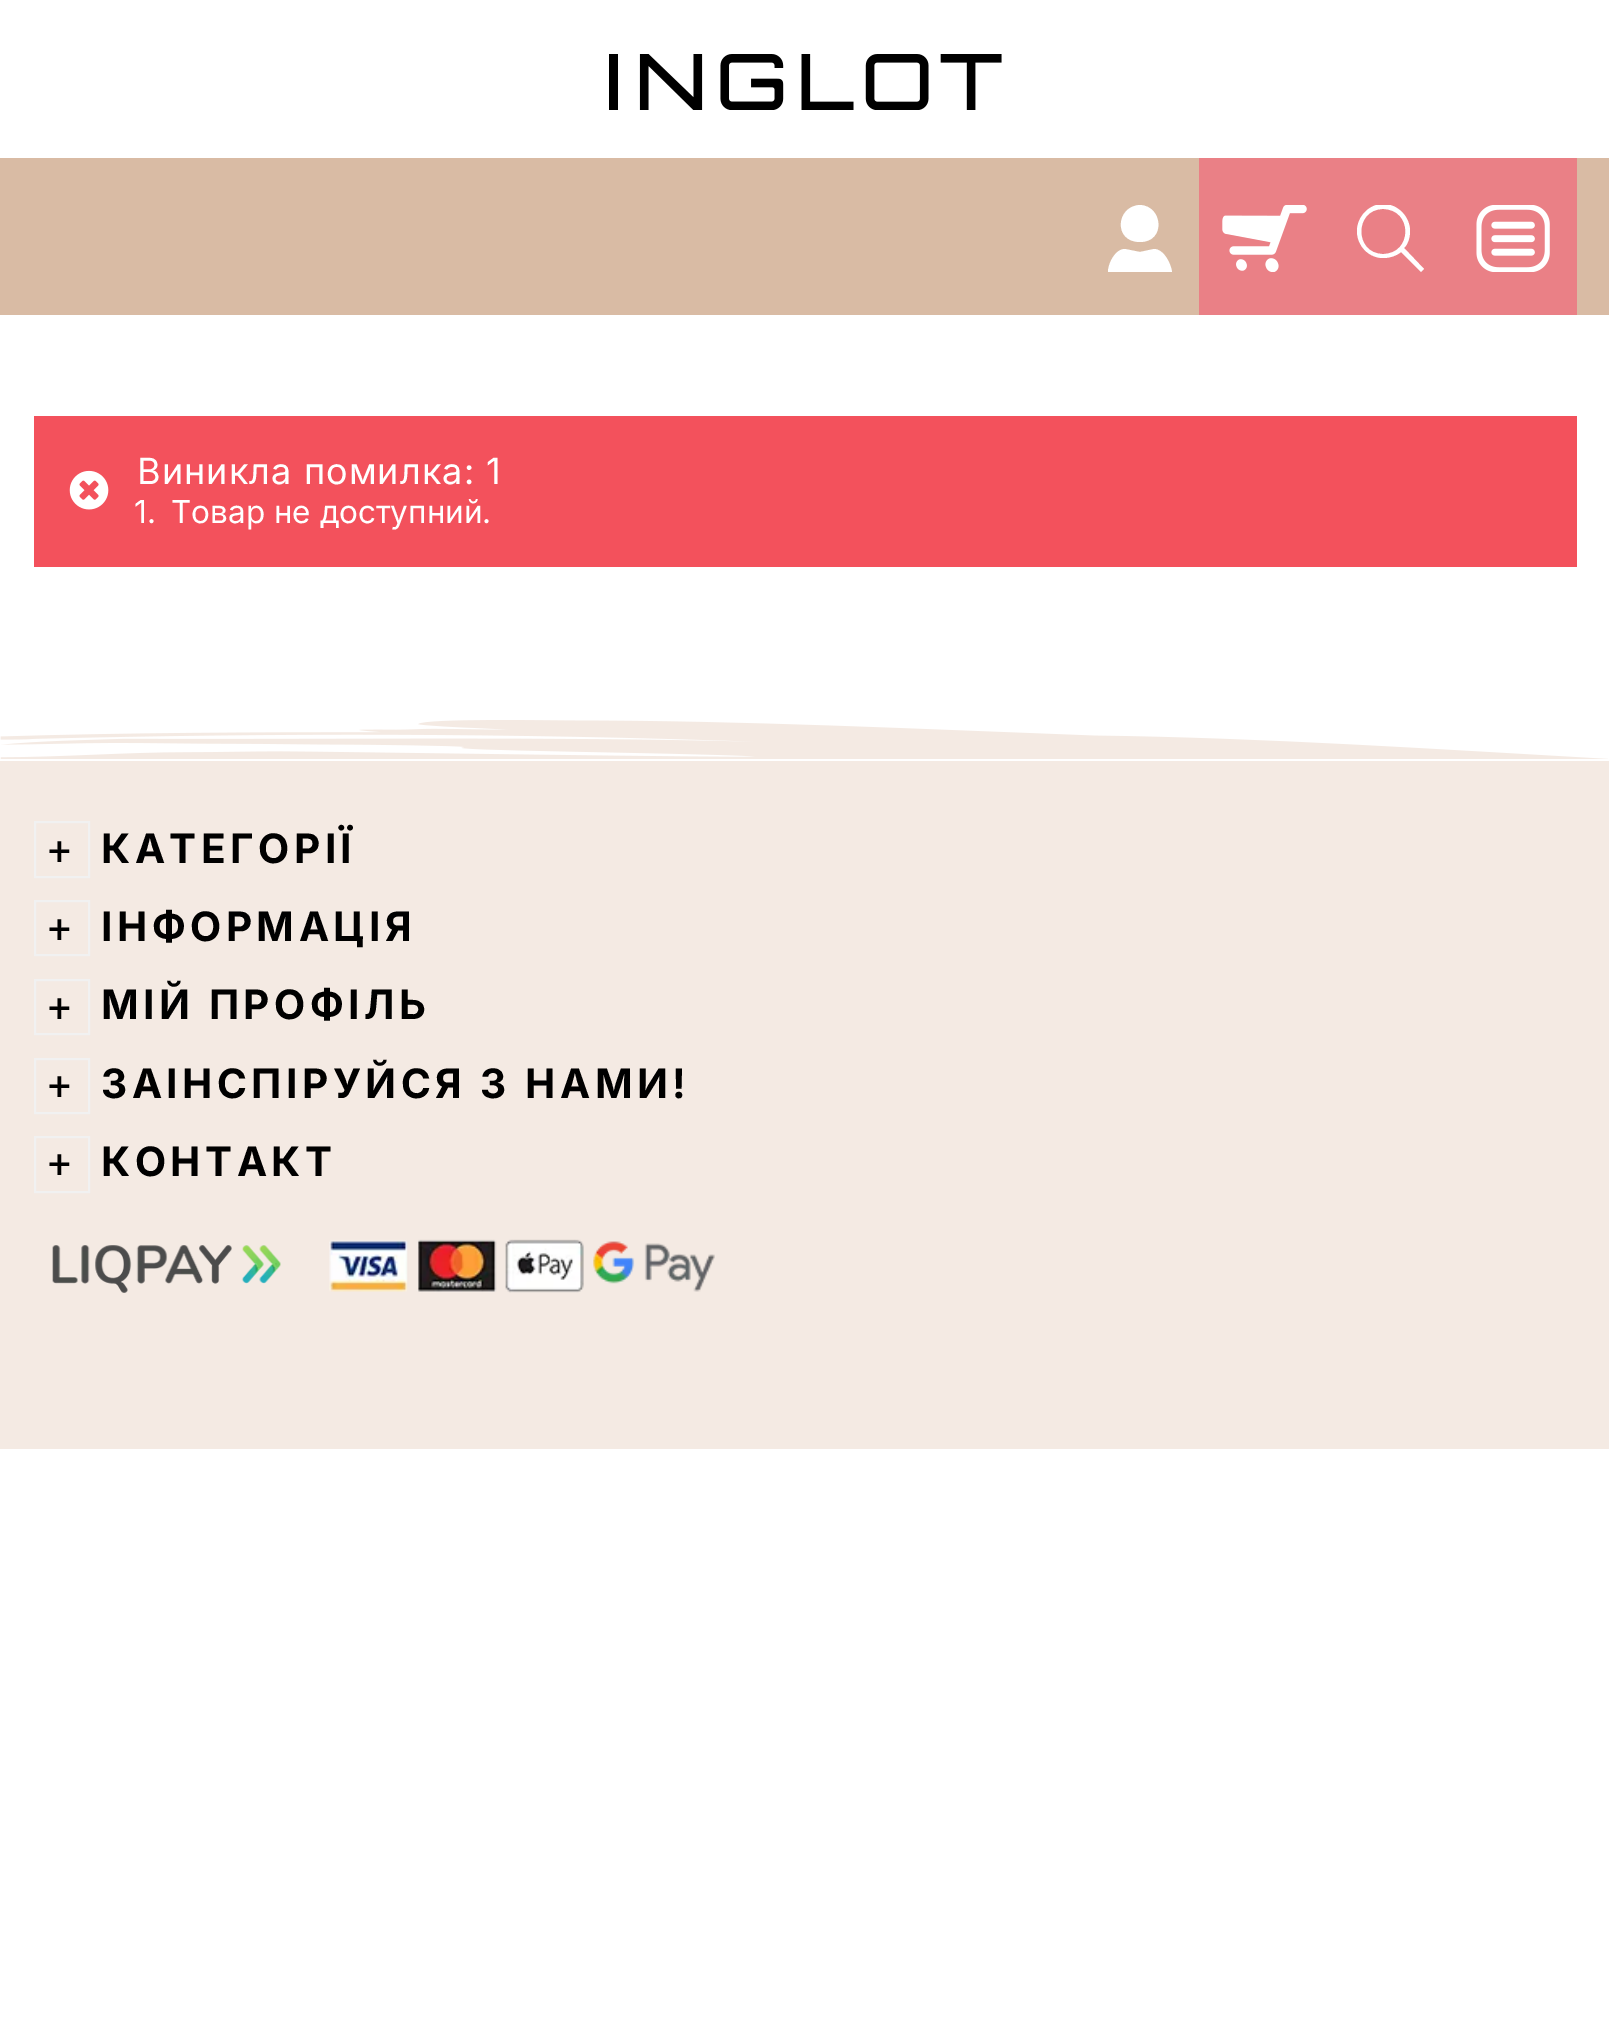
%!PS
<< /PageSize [1609 2042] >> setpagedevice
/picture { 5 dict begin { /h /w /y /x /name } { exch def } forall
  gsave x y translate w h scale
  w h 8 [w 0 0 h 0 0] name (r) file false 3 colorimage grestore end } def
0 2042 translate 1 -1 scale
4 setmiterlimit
1 setgray
0 0 1609 2042 rectfill
(img1.rgb) 609 54 393 56 picture
0.851 0.733 0.643 setrgbcolor
0 158 1609 157 rectfill
1 setgray
newpath 1140 205 moveto 1163 206 1166 242 1140 242 curveto 1113 242 1116 206 1140 205 curveto closepath 1140 252 moveto 1154 249 lineto 1164 249 1171 264 1172 272 curveto 1108 272 lineto 1108 264 1115 249 1125 249 curveto closepath eofill
0.918 0.502 0.525 setrgbcolor
1199 158 378 157 rectfill
(img2.rgb) 1222 205 85 67 picture
gsave
1357 205 67 67 rectclip
1 setgray
newpath 1383 258 moveto 1390 258 1396 256 1401 252 curveto 1421 272 lineto 1424 269 lineto 1404 248 lineto 1408 244 1410 238 1410 231 curveto 1410 217 1398 204 1383 204 curveto 1369 204 1357 217 1357 231 curveto 1357 246 1369 258 1383 258 curveto closepath 1383 209 moveto 1413 209 1413 254 1383 254 curveto 1354 254 1354 209 1383 209 curveto closepath eofill
grestore
(img3.rgb) 1476 205 74 67 picture
0.953 0.318 0.361 setrgbcolor
34 416 1543 151 rectfill
(img4.rgb) 69 470 40 40 picture
/Inter-Regular [36 0 0 -36 0 0] selectfont
1 setgray
137 484 moveto 1.1 0 (Виникла помилка: 1) ashow
/Inter-Regular [31.5 0 0 -31.5 0 0] selectfont
134 523 moveto (1.) show
171 523 moveto (Товар не доступний.) show
(img5.rgb) 0 720 1608 39 picture
0.957 0.918 0.89 setrgbcolor
0 761 1609 688 rectfill
0.945 setgray
2 setlinewidth
35 822 54 55 rectstroke
/Roboto-Regular [40.5 0 0 -40.5 0 0] selectfont
0 setgray
48 865 moveto 4.5 0 (+) ashow
/Inter-Bold [40.5 0 0 -40.5 0 0] selectfont
101 863 moveto 4.5 0 (КАТЕГОРІЇ) ashow
0.945 setgray
35 901 54 54 rectstroke
/Roboto-Regular [40.5 0 0 -40.5 0 0] selectfont
0 setgray
48 943 moveto 4.5 0 (+) ashow
/Inter-Bold [40.5 0 0 -40.5 0 0] selectfont
101 941 moveto 4.5 0 (ІНФОРМАЦІЯ) ashow
0.945 setgray
35 980 54 54 rectstroke
/Roboto-Regular [40.5 0 0 -40.5 0 0] selectfont
0 setgray
48 1022 moveto 4.5 0 (+) ashow
/Inter-Bold [40.5 0 0 -40.5 0 0] selectfont
101 1019 moveto 4.5 0 (МІЙ ПРОФІЛЬ) ashow
0.945 setgray
35 1059 54 54 rectstroke
/Roboto-Regular [40.5 0 0 -40.5 0 0] selectfont
0 setgray
48 1100 moveto 4.5 0 (+) ashow
/Inter-Bold [40.5 0 0 -40.5 0 0] selectfont
101 1098 moveto 4.5 0 (ЗАІНСПІРУЙСЯ З НАМИ!) ashow
0.945 setgray
35 1137 54 55 rectstroke
/Roboto-Regular [40.5 0 0 -40.5 0 0] selectfont
0 setgray
48 1178 moveto 4.5 0 (+) ashow
/Inter-Bold [40.5 0 0 -40.5 0 0] selectfont
101 1176 moveto 4.5 0 (КОНТАКТ) ashow
(img6.rgb) 52 1245 229 48 picture
(img7.rgb) 329 1239 386 54 picture
showpage
